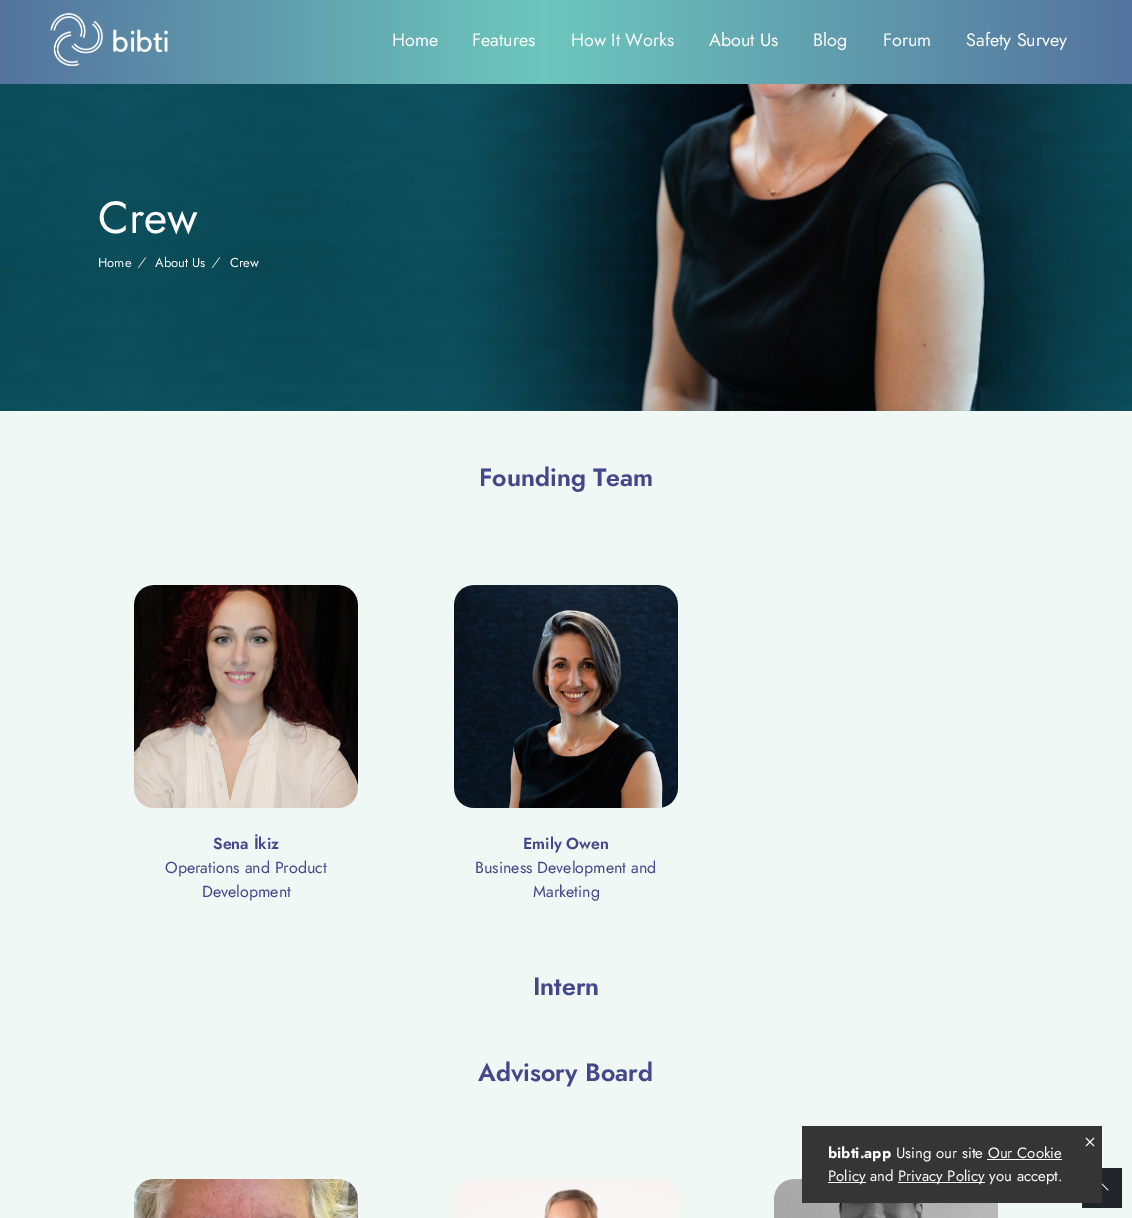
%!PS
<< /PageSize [1132 1218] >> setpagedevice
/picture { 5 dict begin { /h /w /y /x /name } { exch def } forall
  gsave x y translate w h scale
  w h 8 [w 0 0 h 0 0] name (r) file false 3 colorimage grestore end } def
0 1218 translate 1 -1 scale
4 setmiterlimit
0.937 0.973 0.957 setrgbcolor
0 0 1132 1218 rectfill
gsave newpath 0 0 moveto 1132 0 lineto 1132 84 lineto 0 84 lineto closepath clip newpath
<< /ShadingType 2 /ColorSpace /DeviceRGB /Coords [0 35 1132 34] /Extend [true true] /Function << /FunctionType 3 /Domain [0 1] /Functions [<< /FunctionType 2 /Domain [0 1] /C0 [0.329 0.455 0.62] /C1 [0.427 0.78 0.741] /N 1 >> << /FunctionType 2 /Domain [0 1] /C0 [0.427 0.78 0.741] /C1 [0.329 0.451 0.62] /N 1 >>] /Bounds [0.48] /Encode [0 1 0 1] >> >> shfill grestore
(img1.rgb) 50 12 118 54 picture
/Jost-Regular [18 0 0 -18 0 0] selectfont
1 setgray
392 46 moveto (Home) show
472 46 moveto (Features) show
571 46 moveto (How It Works) show
709 46 moveto (About Us) show
813 46 moveto (Blog) show
883 46 moveto (Forum) show
966 46 moveto (Safety Survey) show
(img2.rgb) 0 84 1132 327 picture
/Jost-Regular [45 0 0 -45 0 0] selectfont
98 233 moveto (Crew) show
/Jost-Regular [13 0 0 -13 0 0] selectfont
98 267 moveto (Home) show
/Jost-Italic [12 0 0 -12 0 0] selectfont
138 266 moveto (/) show
/Jost-Regular [13 0 0 -13 0 0] selectfont
155 267 moveto (About Us) show
/Jost-Italic [12 0 0 -12 0 0] selectfont
212 266 moveto (/) show
/Jost-Regular [13 0 0 -13 0 0] selectfont
230 267 moveto (Crew) show
/Jost-SemiBold [25 0 0 -25 0 0] selectfont
0.275 0.278 0.541 setrgbcolor
479 486 moveto (Founding Team) show
(img3.rgb) 134 585 224 223 picture
/Jost-SemiBold [16 0 0 -16 0 0] selectfont
213 849 moveto (Sena İkiz) show
/Jost-Regular [16 0 0 -16 0 0] selectfont
165 873 moveto (Operations and Product) show
202 897 moveto (Development) show
(img4.rgb) 454 585 224 223 picture
/Jost-SemiBold [16 0 0 -16 0 0] selectfont
523 849 moveto (Emily Owen) show
/Jost-Regular [16 0 0 -16 0 0] selectfont
475 873 moveto (Business Development and) show
533 897 moveto (Marketing) show
/Jost-SemiBold [25 0 0 -25 0 0] selectfont
533 995 moveto (Intern) show
478 1081 moveto (Advisory Board) show
(img5.rgb) 134 1179 224 39 picture
(img6.rgb) 454 1179 224 39 picture
(img7.rgb) 774 1179 224 39 picture
0.129 0.145 0.161 setrgbcolor
1082 1168 40 40 rectfill
0.212 0.208 0.208 setrgbcolor
802 1126 300 77 rectfill
(img8.rgb) 1085 1137 10 10 picture
/Jost-Bold [15 0 0 -15 0 0] selectfont
1 setgray
828 1158 moveto (bibti.app) show
/Jost-Regular [15 0 0 -15 0 0] selectfont
896 1158 moveto (Using our site Our Cookie) show
828 1182 38 1 rectfill
828 1181 moveto (Policy and) show
987 1159 75 1 rectfill
898 1182 87 1 rectfill
898 1181 moveto (Privacy Policy you accept.) show
(img9.rgb) 1102 1183 7 8 picture
showpage
